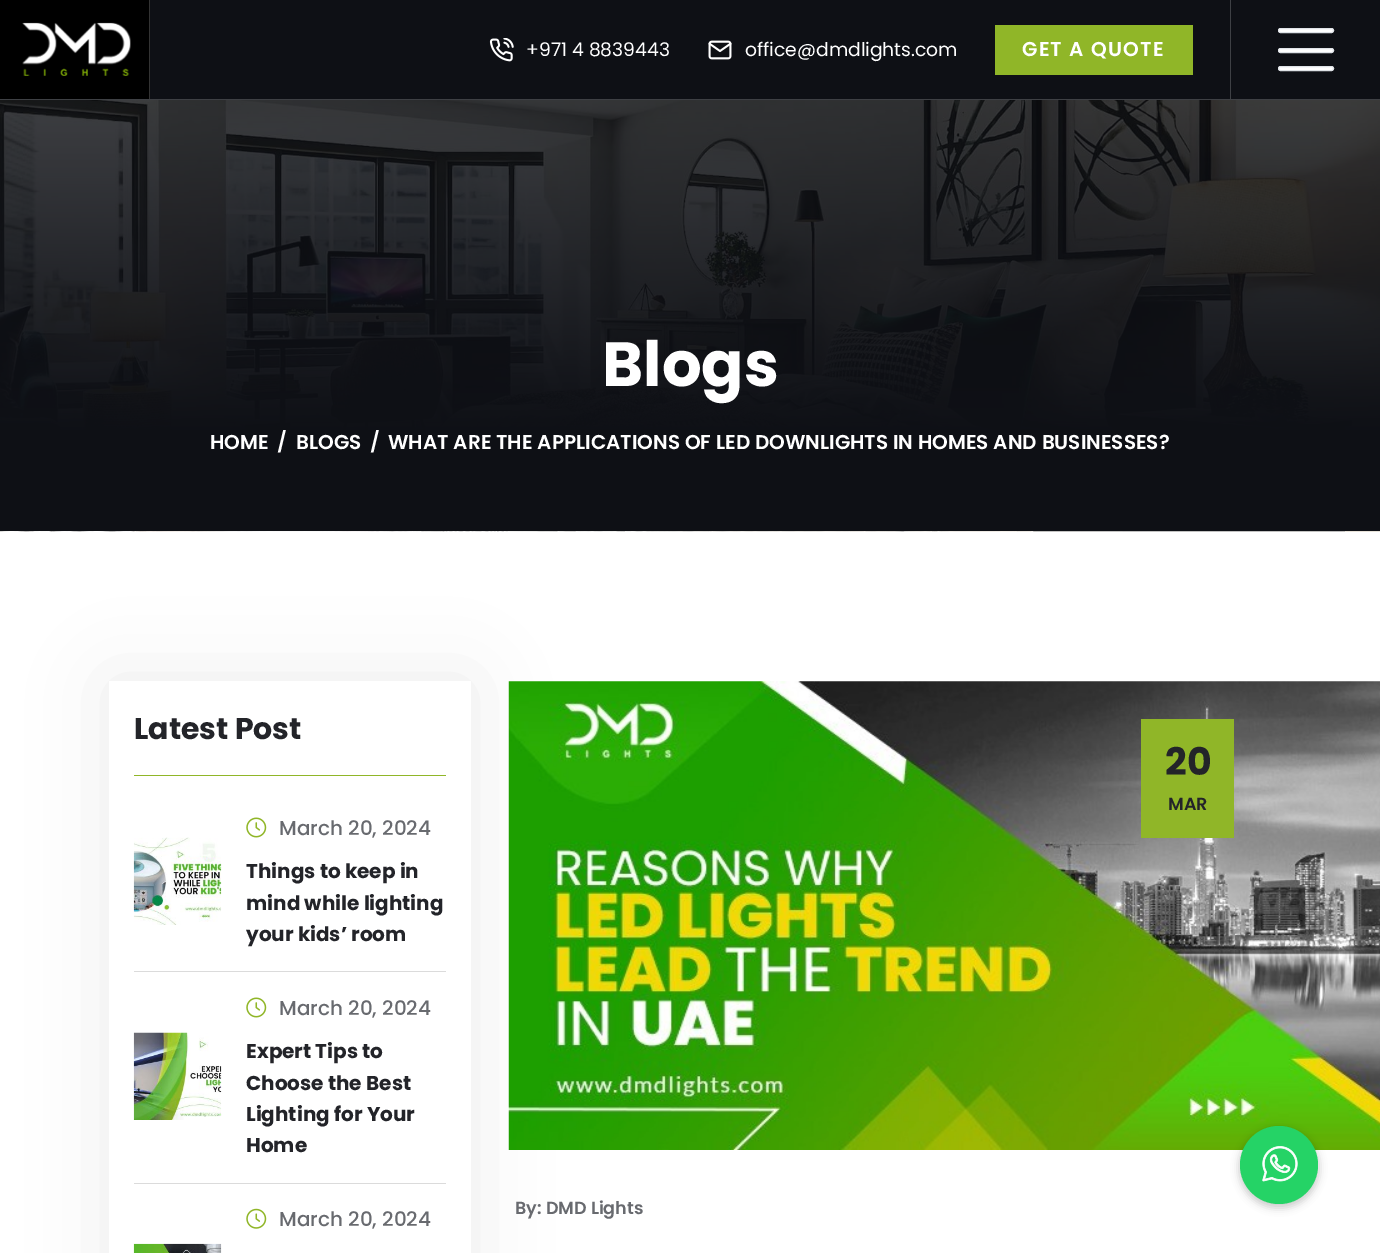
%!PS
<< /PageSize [1380 1253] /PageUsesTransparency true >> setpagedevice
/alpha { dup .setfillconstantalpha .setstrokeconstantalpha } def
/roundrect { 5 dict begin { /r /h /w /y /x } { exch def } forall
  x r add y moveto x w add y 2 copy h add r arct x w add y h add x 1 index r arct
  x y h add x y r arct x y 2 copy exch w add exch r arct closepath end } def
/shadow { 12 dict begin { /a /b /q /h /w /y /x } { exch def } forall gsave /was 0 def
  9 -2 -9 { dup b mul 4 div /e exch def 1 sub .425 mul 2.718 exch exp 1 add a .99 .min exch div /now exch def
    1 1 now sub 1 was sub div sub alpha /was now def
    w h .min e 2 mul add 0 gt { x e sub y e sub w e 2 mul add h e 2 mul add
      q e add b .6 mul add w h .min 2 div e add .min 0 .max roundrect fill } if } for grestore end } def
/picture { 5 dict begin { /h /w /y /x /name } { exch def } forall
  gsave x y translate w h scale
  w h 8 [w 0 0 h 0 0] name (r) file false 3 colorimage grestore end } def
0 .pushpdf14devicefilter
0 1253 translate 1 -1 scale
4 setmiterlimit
0.055 0.063 0.082 setrgbcolor
0 0 1380 1253 rectfill
0.243 0.251 0.267 setrgbcolor
0 99 1380 1 rectfill
0 setgray
0 0 149 99 rectfill
0.2 setgray
149 0 1 99 rectfill
(img1.rgb) 22 22 109 54 picture
(img2.rgb) 489 38 25 24 picture
/Poppins-Regular [18.75 0 0 -18.75 0 0] selectfont
1 setgray
526 56 moveto (+971 4 8839443) show
(img3.rgb) 708 40 24 20 picture
745 56 moveto (office@dmdlights.com) show
0.565 0.714 0.157 setrgbcolor
995 25 198 50 rectfill
/Poppins-SemiBold [20 0 0 -20 0 0] selectfont
1 setgray
1022 56 moveto 1.25 0 (GET A QUOTE) ashow
0.243 0.251 0.267 setrgbcolor
1230 0 1 99 rectfill
1 setgray
1278.5 28.5 55 4 2 roundrect gsave fill grestore
0.871 0.886 0.902 setrgbcolor
stroke
1 setgray
1278.5 48.5 55 4 2 roundrect gsave fill grestore
0.871 0.886 0.902 setrgbcolor
stroke
1 setgray
1278.5 66.5 55 4 2 roundrect gsave fill grestore
0.871 0.886 0.902 setrgbcolor
stroke
1 setgray
0 531 1380 722 rectfill
(img4.rgb) 0 100 1380 432 picture
/Poppins-Bold [62.5 0 0 -62.5 0 0] selectfont
602 386 moveto (Blogs) show
/Poppins-SemiBold [20 0 0 -20 0 0] selectfont
210 449 moveto (HOME) show
277 449 moveto (/) show
296 449 moveto (BLOGS) show
370 449 moveto (/) show
388 449 moveto (WHAT ARE THE APPLICATIONS OF LED DOWNLIGHTS IN HOMES AND BUSINESSES?) show
0.008 setgray
109 681 362 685 0 37.5 0.07 shadow
1 setgray
109 681 362 572 rectfill
0.565 0.714 0.157 setrgbcolor
134 775 312 1 rectfill
/Poppins-Bold [30 0 0 -30 0 0] selectfont
0.137 0.141 0.161 setrgbcolor
134 739 moveto (Latest Post) show
0.859 setgray
134 971 312 1 rectfill
(img5.rgb) 133 837 89 88 picture
(img6.rgb) 246 817 21 21 picture
/Poppins-Medium [20 0 0 -20 0 0] selectfont
0.408 0.416 0.435 setrgbcolor
279 835 moveto (March 20, 2024) show
/Poppins-Bold [20 0 0 -20 0 0] selectfont
0.137 0.141 0.161 setrgbcolor
246 878 moveto (Things to keep in) show
246 910 moveto (mind while lighting) show
246 941 moveto (your kids’ room) show
0.859 setgray
134 1183 312 1 rectfill
(img7.rgb) 133 1032 89 88 picture
(img6.rgb) 246 997 21 21 picture
/Poppins-Medium [20 0 0 -20 0 0] selectfont
0.408 0.416 0.435 setrgbcolor
279 1015 moveto (March 20, 2024) show
/Poppins-Bold [20 0 0 -20 0 0] selectfont
0.137 0.141 0.161 setrgbcolor
246 1058 moveto (Expert Tips to) show
246 1090 moveto (Choose the Best) show
246 1121 moveto (Lighting for Your) show
246 1152 moveto (Home) show
(img8.rgb) 246 1208 21 21 picture
/Poppins-Medium [20 0 0 -20 0 0] selectfont
0.408 0.416 0.435 setrgbcolor
279 1226 moveto (March 20, 2024) show
(img9.rgb) 133 1243 89 10 picture
(img10.rgb) 508 681 872 469 picture
0.565 0.714 0.157 setrgbcolor
1141 719 93 119 rectfill
/Poppins-Bold [38 0 0 -38 0 0] selectfont
0.137 0.141 0.161 setrgbcolor
1165 775 moveto (20) show
/Poppins-SemiBold [17.5 0 0 -17.5 0 0] selectfont
1168 810 moveto (MAR) show
0.408 0.416 0.435 setrgbcolor
515 1214 moveto (By: DMD Lights) show
0 setgray
1239 1128 80 80 40 4 0.2 shadow
0.145 0.827 0.4 setrgbcolor
newpath 1279 1165 39 0 360 arc closepath fill
(img11.rgb) 1262 1146 36 36 picture
.poppdf14devicefilter showpage
